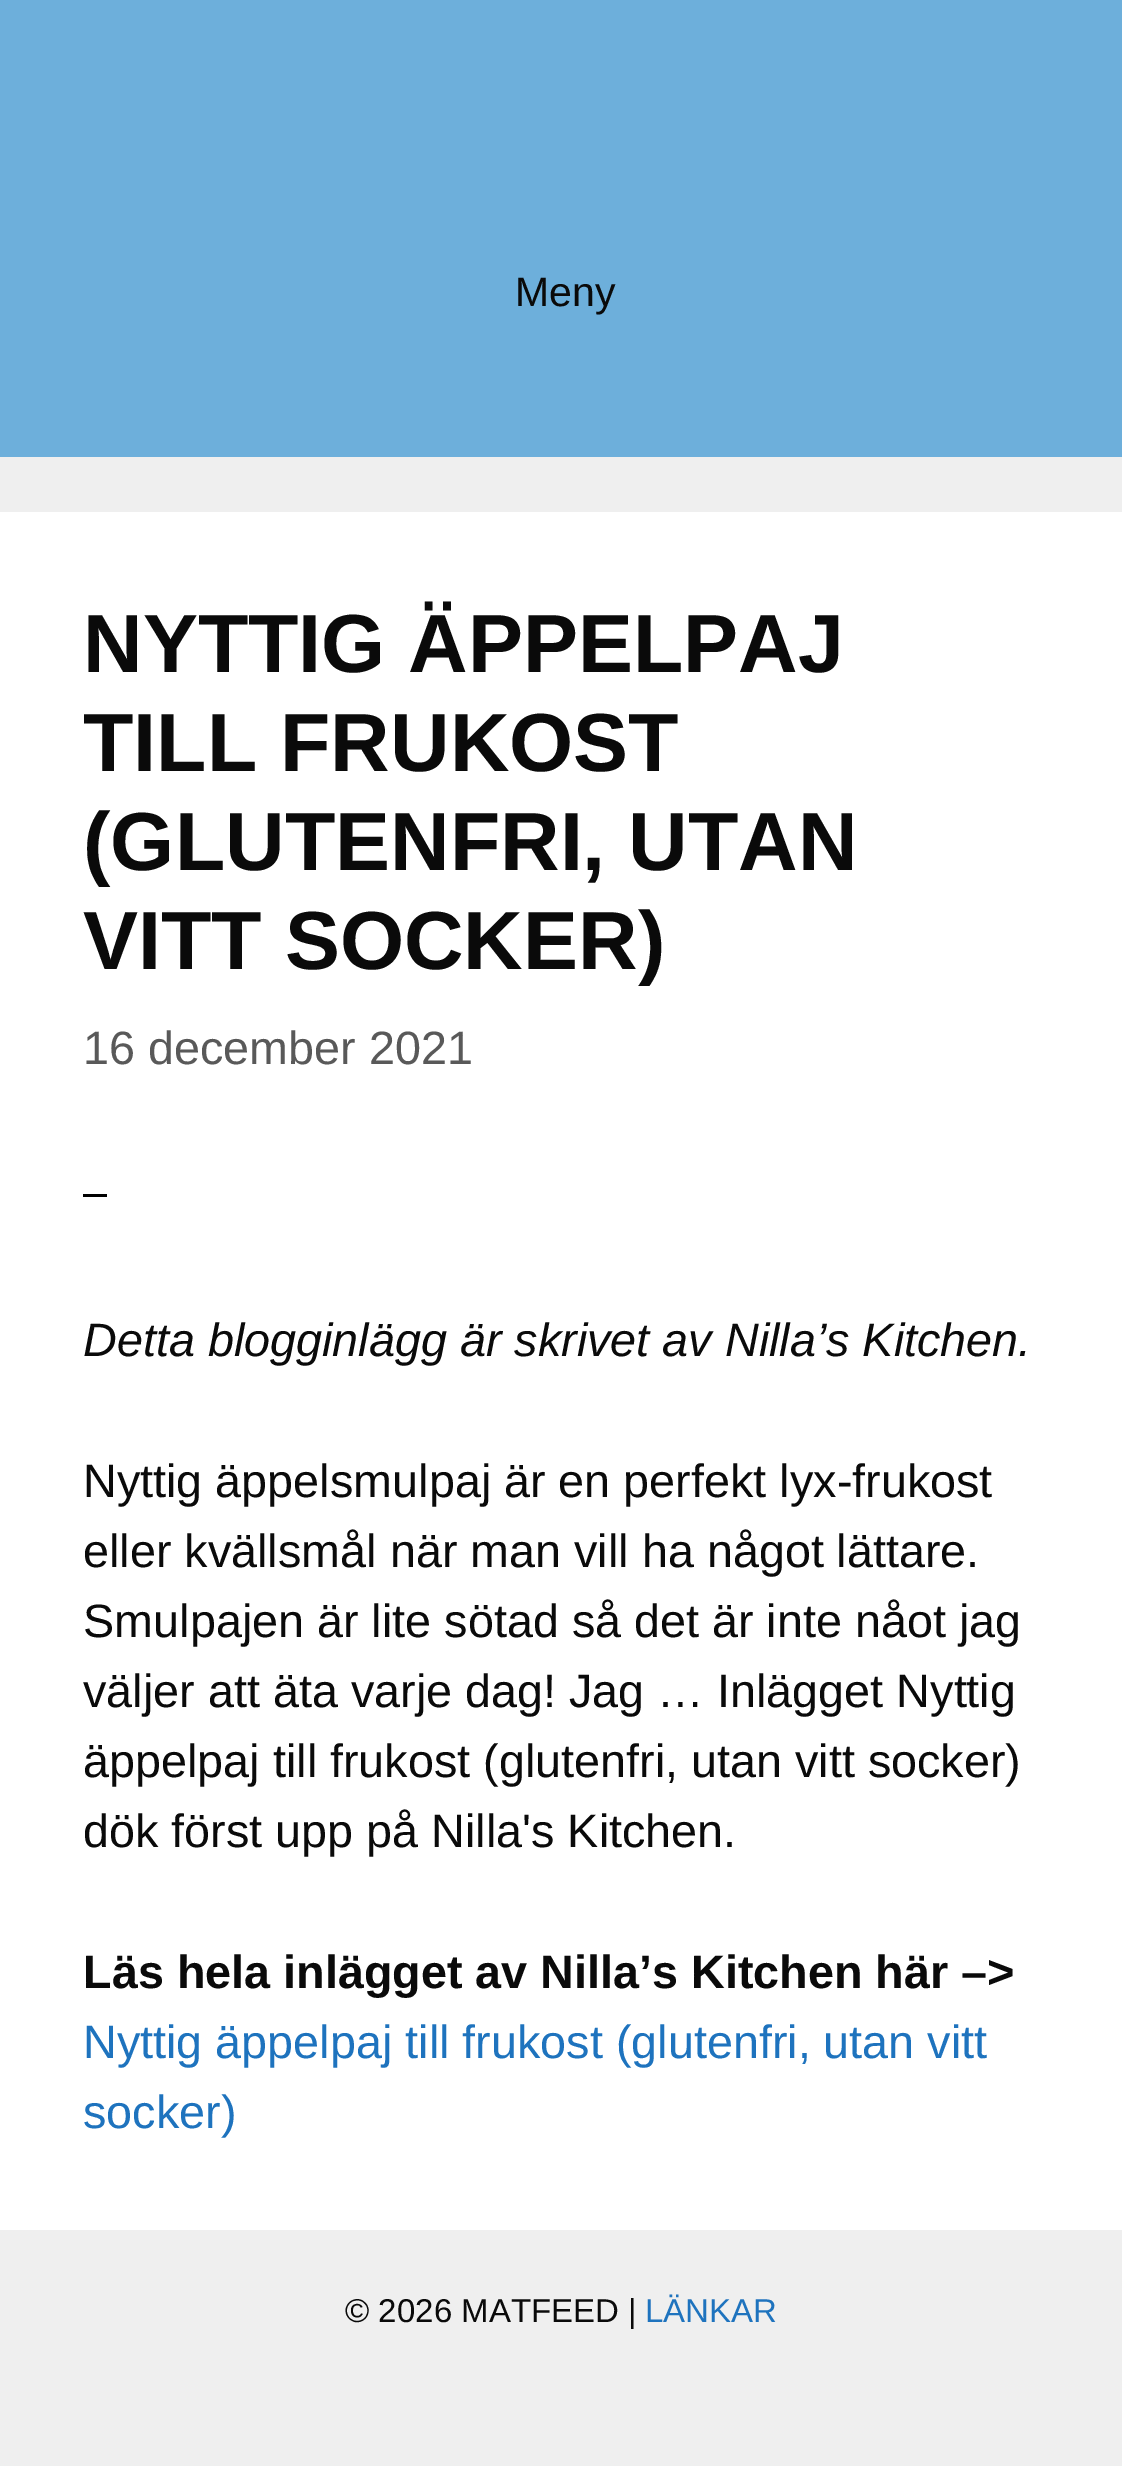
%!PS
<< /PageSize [1122 2466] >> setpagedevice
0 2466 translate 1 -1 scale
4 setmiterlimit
0.937 setgray
0 0 1122 2466 rectfill
0.427 0.686 0.859 setrgbcolor
0 0 1122 457 rectfill
/Arimo-Regular [41 0 0 -41 0 0] selectfont
0.039 setgray
515 306 moveto (Meny) show
1 setgray
0 512 1122 1718 rectfill
/Arimo-Bold [82.5 0 0 -82.5 0 0] selectfont
0.039 setgray
83 672 moveto (NYTTIG ÄPPELPAJ) show
83 771 moveto (TILL FRUKOST) show
83 870 moveto (\(GLUTENFRI, UTAN) show
83 969 moveto (VITT SOCKER\)) show
/Arimo-Regular [46.75 0 0 -46.75 0 0] selectfont
0.349 setgray
83 1064 moveto (16 december 2021) show
0 setgray
83 1194 24 3 rectfill
/Arimo-Italic [46.75 0 0 -46.75 0 0] selectfont
0.039 setgray
83 1356 moveto (Detta blogginlägg är skrivet av Nilla’s Kitchen.) show
/Arimo-Regular [46.75 0 0 -46.75 0 0] selectfont
83 1497 moveto (Nyttig äppelsmulpaj är en perfekt lyx-frukost) show
83 1567 moveto (eller kvällsmål när man vill ha något lättare.) show
83 1637 moveto (Smulpajen är lite sötad så det är inte nåot jag) show
83 1707 moveto (väljer att äta varje dag! Jag … Inlägget Nyttig) show
83 1777 moveto (äppelpaj till frukost \(glutenfri, utan vitt socker\)) show
83 1847 moveto (dök först upp på Nilla's Kitchen.) show
/Arimo-Bold [46.75 0 0 -46.75 0 0] selectfont
83 1988 moveto (Läs hela inlägget av Nilla’s Kitchen här –>) show
/Arimo-Regular [46.75 0 0 -46.75 0 0] selectfont
0.118 0.451 0.745 setrgbcolor
83 2058 moveto (Nyttig äppelpaj till frukost \(glutenfri, utan vitt) show
83 2128 moveto (socker\)) show
/Arimo-Regular [33 0 0 -33 0 0] selectfont
0.039 setgray
345 2322 moveto (© 2026 MATFEED |) show
0.118 0.451 0.745 setrgbcolor
645 2322 moveto (LÄNKAR) show
showpage
